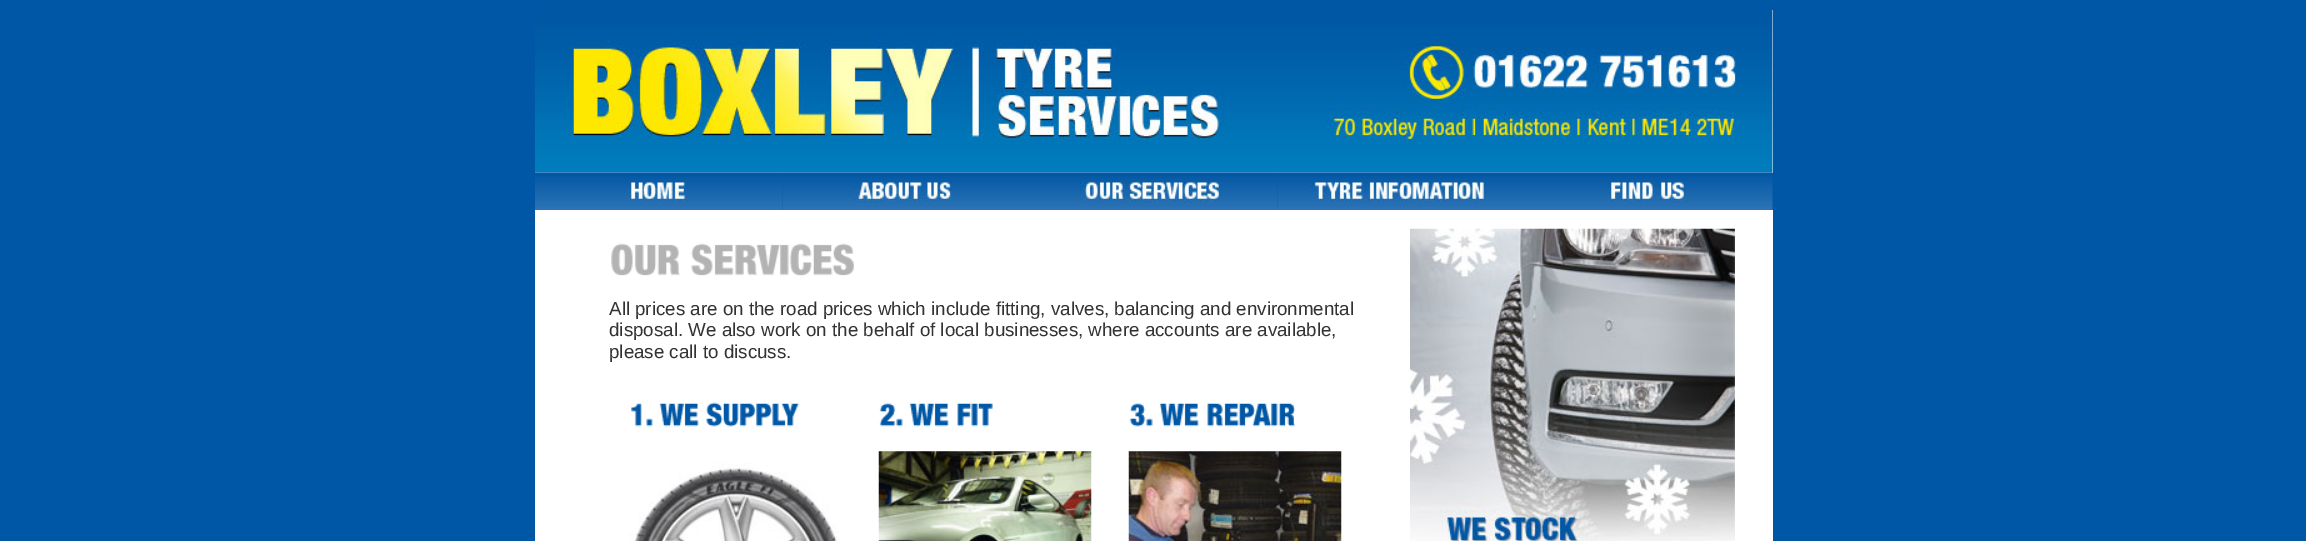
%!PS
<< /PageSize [2306 541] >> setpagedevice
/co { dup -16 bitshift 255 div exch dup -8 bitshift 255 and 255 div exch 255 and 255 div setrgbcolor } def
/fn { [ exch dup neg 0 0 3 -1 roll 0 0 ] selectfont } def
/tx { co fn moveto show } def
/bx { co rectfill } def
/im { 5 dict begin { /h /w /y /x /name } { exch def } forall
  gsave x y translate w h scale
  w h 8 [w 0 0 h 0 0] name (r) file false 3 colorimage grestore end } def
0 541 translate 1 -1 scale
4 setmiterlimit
0 0 2306 541 16#0057A5 bx
535 10 1238 531 16#FFFFFF bx
(media/1.raw) 535 10 1238 163 im
782 173 991 37 16#0057A5 bx
(media/2.raw) 535 172 248 38 im
(media/3.raw) 782 172 248 38 im
(media/4.raw) 1030 172 248 38 im
(media/5.raw) 1277 172 248 38 im
(media/6.raw) 1525 172 248 38 im
(media/7.raw) 611 243 243 33 im
(media/8.raw) 631 402 168 25 im
(media/9.raw) 629 463 210 78 im
(media/10.raw) 879 403 114 24 im
(media/11.raw) 878 451 214 90 im
(media/12.raw) 1129 403 167 24 im
(media/13.raw) 1128 451 214 90 im
(media/14.raw) 1410 228 325 313 im
(All prices are on the road prices which include fitting, valves, balancing and environmental) 609 315 /LiberationSans-Regular 18.75 16#333333 tx
(disposal. We also work on the behalf of local businesses, where accounts are available,) 609 336 /LiberationSans-Regular 18.75 16#333333 tx
(please call to discuss.) 609 358 /LiberationSans-Regular 18.75 16#333333 tx
showpage
